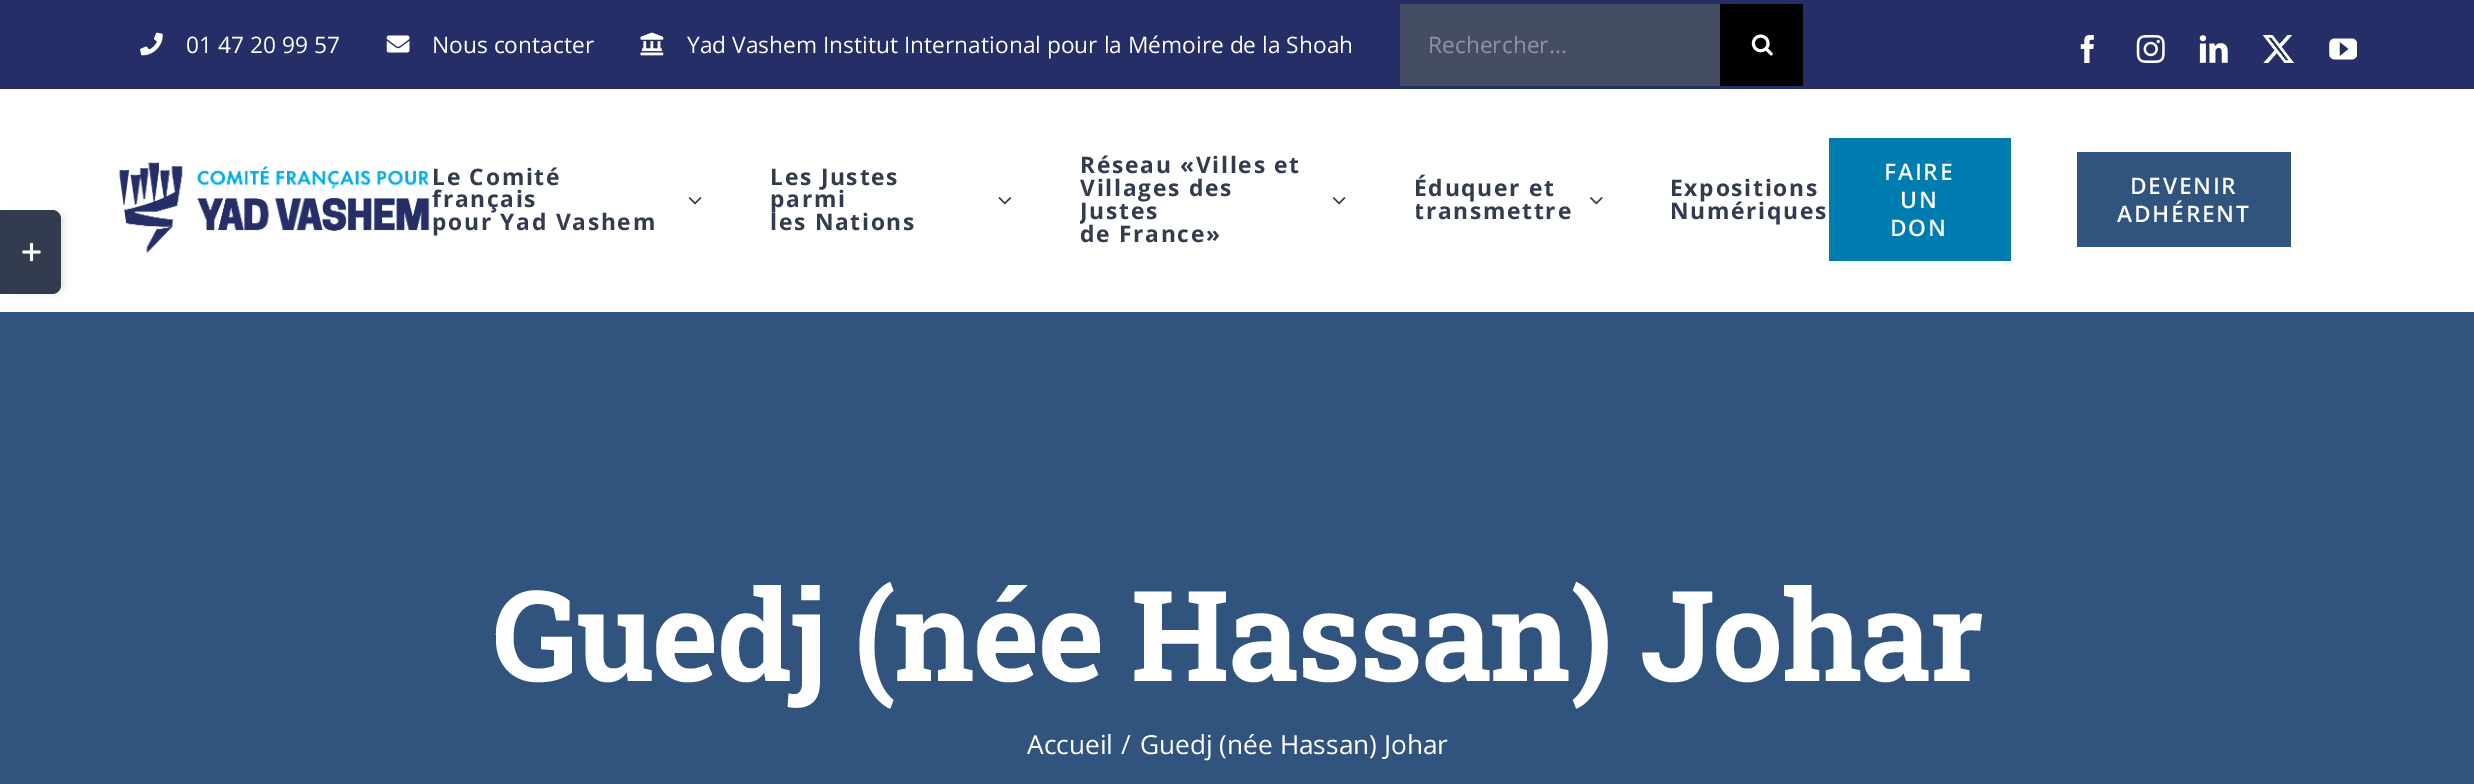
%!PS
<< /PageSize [2474 784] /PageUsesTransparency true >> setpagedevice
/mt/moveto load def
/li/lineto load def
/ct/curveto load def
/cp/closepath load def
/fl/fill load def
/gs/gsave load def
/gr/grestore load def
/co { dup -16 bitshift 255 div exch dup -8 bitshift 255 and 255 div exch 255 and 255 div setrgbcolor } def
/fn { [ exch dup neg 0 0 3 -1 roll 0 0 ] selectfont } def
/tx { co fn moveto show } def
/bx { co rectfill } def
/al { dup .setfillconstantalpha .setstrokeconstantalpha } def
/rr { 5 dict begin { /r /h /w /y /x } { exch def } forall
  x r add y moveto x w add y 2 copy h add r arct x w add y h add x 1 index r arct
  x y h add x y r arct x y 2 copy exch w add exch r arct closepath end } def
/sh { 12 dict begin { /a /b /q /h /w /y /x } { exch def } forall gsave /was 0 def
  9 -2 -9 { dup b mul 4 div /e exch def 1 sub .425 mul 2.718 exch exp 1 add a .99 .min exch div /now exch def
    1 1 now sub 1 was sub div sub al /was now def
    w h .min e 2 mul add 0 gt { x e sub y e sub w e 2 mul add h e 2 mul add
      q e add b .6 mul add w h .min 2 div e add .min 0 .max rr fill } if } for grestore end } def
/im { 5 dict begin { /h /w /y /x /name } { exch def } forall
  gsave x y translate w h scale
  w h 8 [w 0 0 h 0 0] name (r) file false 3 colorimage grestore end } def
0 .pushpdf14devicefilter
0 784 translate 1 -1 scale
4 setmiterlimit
0 0 2474 784 16#FFFFFF bx
16#000000 co
9 214 54 77 5 4.5 .14 sh
16#333C4E co
0 210 mt 52 210 li 57 210 61 214 61 219 ct 61 285 li 61 290 57 294 52 294 ct 0 294 li cp fl
(media/1.raw) 22 242 19 20 im
0 0 2474 89 16#252E67 bx
(media/2.raw) 140 32 23 24 im
(media/3.raw) 386 35 24 18 im
(media/4.raw) 640 32 24 24 im
1400 4 320 82 16#444D62 bx
1720 4 83 82 16#000000 bx
(media/5.raw) 1751 34 22 22 im
(media/6.raw) 2080 35 14 28 im
(media/7.raw) 2136 35 29 28 im
(media/8.raw) 2199 35 29 28 im
(media/9.raw) 2262 35 33 28 im
(media/10.raw) 2329 38 28 22 im
(media/11.raw) 119 162 311 92 im
(media/12.raw) 688 197 14 8 im
(media/13.raw) 998 197 14 8 im
(media/12.raw) 1332 197 14 8 im
(media/14.raw) 1590 197 13 8 im
1829 138 182 123 16#007DB0 bx
2077 152 214 95 16#31547E bx
0 312 2474 472 16#31547E bx
(01 47 20 99 57) 186 53 /OpenSans-Regular 22.75 16#FFFFFF tx
(Nous contacter) 432 53 /OpenSans-Regular 22.75 16#FFFFFF tx
(Yad Vashem Institut International pour la Mémoire de la Shoah) 687 53 /OpenSans-Regular 22.75 16#FFFFFF tx
(Rechercher...) 1428 53 /OpenSans-Regular 22.75 16#8F94A1 tx
/OpenSans-Bold 22.75 fn
16#333C4E co
432 185 mt 1.75 0 (Le Comité) ashow
432 207 mt 1.75 0 (français) ashow
432 230 mt 1.75 0 (pour Yad Vashem) ashow
770 185 mt 1.75 0 (Les Justes) ashow
770 207 mt 1.75 0 (parmi) ashow
770 230 mt 1.75 0 (les Nations) ashow
1080 173 mt 1.75 0 (Réseau «Villes et) ashow
1080 196 mt 1.75 0 (Villages des) ashow
gs
1080 89 336 221 rectclip
1080 219 mt 1.75 0 (Justes) ashow
gr
1080 242 mt 1.75 0 (de France») ashow
gs
1416 89 254 221 rectclip
1414 196 mt 1.75 0 (Éduquer et) ashow
1414 219 mt 1.75 0 (transmettre) ashow
gr
1670 196 mt 1.75 0 (Expositions) ashow
1670 219 mt 1.75 0 (Numériques) ashow
/OpenSans-SemiBold 22.75 fn
16#FFFFFF co
1884 180 mt 1.75 0 (FAIRE) ashow
1900 208 mt 1.75 0 (UN) ashow
1890 236 mt 1.75 0 (DON) ashow
2130 194 mt 1.75 0 (DEVENIR) ashow
2117 222 mt 1.75 0 (ADHÉRENT) ashow
/RobotoSlab-Bold 126 fn
493 681 mt -1.75 0 (Guedj \(née Hassan\) Johar) ashow
(Accueil) 1027 754 /OpenSans-Regular 26.25 16#FFFFFF tx
(/) 1121 754 /OpenSans-Regular 26.25 16#FFFFFF tx
(Guedj \(née Hassan\) Johar) 1140 754 /OpenSans-Regular 26.25 16#FFFFFF tx
.poppdf14devicefilter showpage
